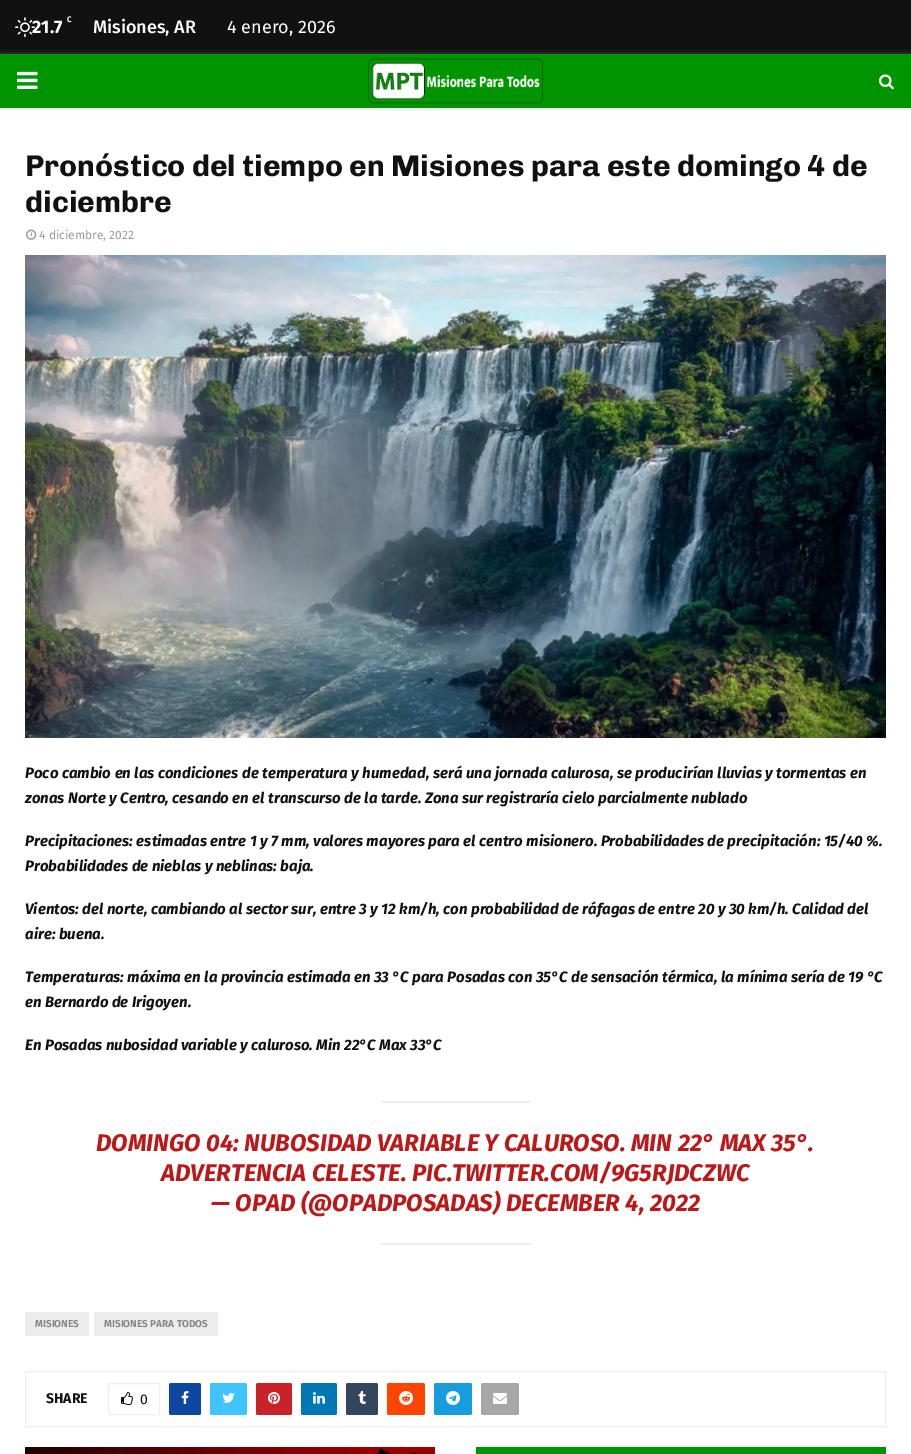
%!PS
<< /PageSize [911 1454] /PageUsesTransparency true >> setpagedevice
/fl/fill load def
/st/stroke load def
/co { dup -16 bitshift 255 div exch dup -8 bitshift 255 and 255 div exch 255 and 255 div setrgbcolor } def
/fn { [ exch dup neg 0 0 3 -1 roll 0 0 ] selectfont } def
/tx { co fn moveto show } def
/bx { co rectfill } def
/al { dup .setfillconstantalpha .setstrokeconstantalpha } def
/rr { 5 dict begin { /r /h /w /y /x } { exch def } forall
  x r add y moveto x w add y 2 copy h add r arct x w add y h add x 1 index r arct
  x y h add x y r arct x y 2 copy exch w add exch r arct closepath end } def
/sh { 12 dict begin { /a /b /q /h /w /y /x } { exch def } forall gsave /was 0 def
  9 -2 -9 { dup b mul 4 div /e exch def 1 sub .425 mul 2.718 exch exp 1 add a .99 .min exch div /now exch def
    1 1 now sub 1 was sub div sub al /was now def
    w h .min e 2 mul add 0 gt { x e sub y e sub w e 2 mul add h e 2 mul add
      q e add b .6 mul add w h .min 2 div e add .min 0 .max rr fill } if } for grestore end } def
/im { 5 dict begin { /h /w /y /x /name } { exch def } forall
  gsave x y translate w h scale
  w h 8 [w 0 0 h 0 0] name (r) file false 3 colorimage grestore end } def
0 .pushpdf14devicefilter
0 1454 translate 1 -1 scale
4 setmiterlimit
0 0 911 1454 16#FFFFFF bx
0 0 911 54 16#111111 bx
(media/1.raw) 15 17 20 21 im
16#BEBEBE co
0 55 911 54 0 2.5 .46 sh
0 54 911 54 16#009400 bx
(media/2.raw) 17 71 21 18 im
(media/3.raw) 368 58 175 46 im
(media/4.raw) 879 74 15 16 im
(media/5.raw) 26 229 11 11 im
(media/6.raw) 25 255 861 483 im
381 1101 150 2 16#EEEEEE bx
381 1243 150 2 16#EEEEEE bx
25 1312 64 24 16#ECECEC bx
94 1312 124 24 16#ECECEC bx
16#EEEEEE co
25.5 1371.5 860 55 rectstroke
108.5 1383.5 51 31 1.5 rr st
(media/7.raw) 121 1392 12 13 im
16#0D47A1 co
169 1383 32 32 2 rr fl
(media/8.raw) 181 1391 8 13 im
16#40C4FF co
210 1383 37 32 2 rr fl
(media/9.raw) 222 1393 13 10 im
16#C92228 co
256 1383 36 32 2 rr fl
(media/10.raw) 268 1392 12 12 im
16#0077B5 co
301 1383 36 32 2 rr fl
(media/11.raw) 313 1392 12 12 im
16#34465D co
346 1383 32 32 2 rr fl
(media/12.raw) 358 1391 8 13 im
16#FF4500 co
387 1383 38 32 2 rr fl
(media/13.raw) 399 1391 14 14 im
16#179CDE co
434 1383 38 32 2 rr fl
(media/14.raw) 446 1391 14 14 im
16#A7A7A7 co
481 1383 38 32 2 rr fl
(media/15.raw) 493 1393 14 11 im
(media/16.raw) 25 1447 410 7 im
476 1447 410 7 16#009400 bx
(21.7) 32 33 /FiraSans-Bold 18 16#FFFFFF tx
(C) 67 22 /FiraSans-Bold 8 16#FFFFFF tx
(Misiones, AR) 93 33 /FiraSans-Medium 18 16#FFFFFF tx
(4 enero, 2026) 227 33 /FiraSans-Regular 18 16#FFFFFF tx
(Pronóstico del tiempo en Misiones para este domingo 4 de) 25 176 /Chivo-Bold 30 16#111111 tx
(diciembre) 25 212 /Chivo-Bold 30 16#111111 tx
(4 diciembre, 2022) 39 239 /FiraSans-Regular 12 16#999999 tx
(Poco cambio en las condiciones de temperatura y humedad, será una jornada calurosa, se producirían lluvias y tormentas en) 25 778 /FiraSans-BoldItalic 15 16#111111 tx
(zonas Norte y Centro, cesando en el transcurso de la tarde. Zona sur registraría cielo parcialmente nublado) 25 803 /FiraSans-BoldItalic 15 16#111111 tx
(Precipitaciones: estimadas entre 1 y 7 mm, valores mayores para el centro misionero. Probabilidades de precipitación: 15/40 %.) 25 846 /FiraSans-BoldItalic 15 16#111111 tx
(Probabilidades de nieblas y neblinas: baja.) 25 871 /FiraSans-BoldItalic 15 16#111111 tx
(Vientos: del norte, cambiando al sector sur, entre 3 y 12 km/h, con probabilidad de ráfagas de entre 20 y 30 km/h. Calidad del) 25 914 /FiraSans-BoldItalic 15 16#111111 tx
(aire: buena.) 25 939 /FiraSans-BoldItalic 15 16#111111 tx
(Temperaturas: máxima en la provincia estimada en 33 °C para Posadas con 35°C de sensación térmica, la mínima sería de 19 °C) 25 982 /FiraSans-BoldItalic 15 16#111111 tx
(en Bernardo de Irigoyen.) 25 1007 /FiraSans-BoldItalic 15 16#111111 tx
(En Posadas nubosidad variable y caluroso. Min 22°C Max 33°C) 25 1050 /FiraSans-BoldItalic 15 16#111111 tx
(DOMINGO 04: NUBOSIDAD VARIABLE Y CALUROSO. MIN 22° MAX 35°.) 96 1151 /FiraSans-BoldItalic 24 16#BB1919 tx
(ADVERTENCIA CELESTE. PIC.TWITTER.COM/9G5RJDCZWC) 161 1181 /FiraSans-BoldItalic 24 16#BB1919 tx
(— OPAD \(@OPADPOSADAS\) DECEMBER 4, 2022) 211 1211 /FiraSans-BoldItalic 24 16#BB1919 tx
(MISIONES) 35 1327 /FiraSans-Bold 10 16#888888 tx
(MISIONES PARA TODOS) 104 1327 /FiraSans-Bold 10 16#888888 tx
(SHARE) 46 1403 /FiraSans-Bold 14 16#111111 tx
(0) 140 1404 /FiraSans-Regular 14 16#111111 tx
.poppdf14devicefilter showpage
